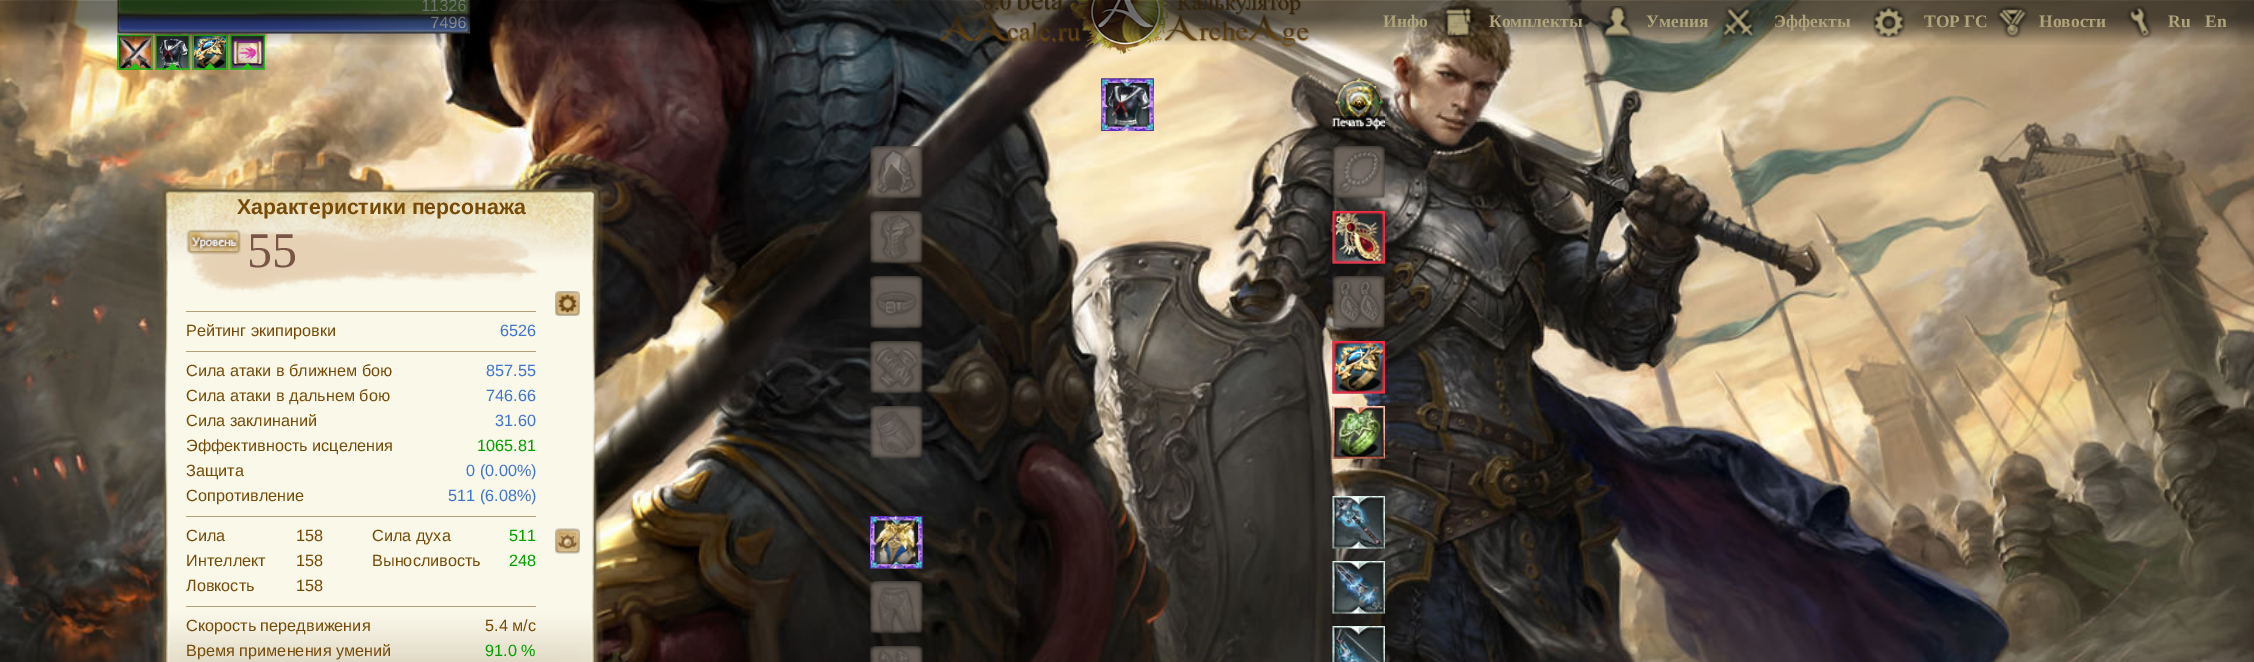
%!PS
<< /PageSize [2254 662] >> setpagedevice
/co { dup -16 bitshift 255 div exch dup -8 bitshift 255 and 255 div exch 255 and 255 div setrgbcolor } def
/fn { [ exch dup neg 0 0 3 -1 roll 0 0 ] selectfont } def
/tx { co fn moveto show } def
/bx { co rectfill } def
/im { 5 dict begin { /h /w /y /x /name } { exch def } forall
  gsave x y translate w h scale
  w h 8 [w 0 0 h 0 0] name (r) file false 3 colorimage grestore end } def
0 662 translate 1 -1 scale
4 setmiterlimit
0 0 2254 662 16#FFFFFF bx
(media/1.raw) 0 0 2254 662 im
(media/2.raw) 117 0 354 34 im
(media/3.raw) 940 0 370 55 im
(media/11.raw) 117 34 36 36 im
(media/12.raw) 117 34 36 36 im
(media/13.raw) 155 34 35 36 im
(media/14.raw) 155 34 35 36 im
(media/15.raw) 192 34 36 36 im
(media/16.raw) 192 34 36 36 im
(media/17.raw) 230 34 35 36 im
(media/18.raw) 230 34 35 36 im
(media/19.raw) 156 183 448 479 im
(media/21.raw) 191 228 347 65 im
(media/20.raw) 186 229 55 26 im
186 311 350 1 16#B1A17D bx
186 351 350 1 16#B1A17D bx
186 516 350 1 16#B1A17D bx
186 606 350 1 16#B1A17D bx
(media/22.raw) 555 291 25 25 im
(media/23.raw) 555 528 25 26 im
(media/24.raw) 1101 78 53 53 im
(media/25.raw) 1101 78 53 53 im
(media/26.raw) 1332 78 53 53 im
(media/27.raw) 870 146 53 53 im
(media/28.raw) 870 211 53 53 im
(media/29.raw) 870 276 53 53 im
(media/30.raw) 870 341 53 53 im
(media/31.raw) 870 406 53 53 im
(media/32.raw) 870 516 53 53 im
(media/33.raw) 870 516 53 53 im
(media/34.raw) 870 581 53 53 im
(media/35.raw) 870 646 53 16 im
(media/36.raw) 1332 146 53 53 im
(media/37.raw) 1332 211 53 53 im
(media/38.raw) 1332 211 53 53 im
(media/39.raw) 1332 276 53 53 im
(media/40.raw) 1332 341 53 53 im
(media/41.raw) 1332 341 53 53 im
(media/42.raw) 1332 406 53 53 im
(media/43.raw) 1332 406 53 53 im
(media/44.raw) 1332 496 53 53 im
(media/45.raw) 1332 496 53 53 im
(media/46.raw) 1332 561 53 53 im
(media/47.raw) 1332 561 53 53 im
(media/48.raw) 1332 626 52 36 im
(media/49.raw) 1332 626 53 36 im
(11326) 421 11 /LiberationSans-Regular 16.25 16#FFFFFF tx
(7496) 430 28 /LiberationSans-Regular 16.25 16#FFFFFF tx
(media/4.raw) 0 0 2254 45 im
(media/5.raw) 1443 6 31 32 im
(Инфо) 1383 27 /LiberationSerif-Bold 17.5 16#B0A47B tx
(media/6.raw) 1602 6 32 32 im
(Комплекты) 1489 27 /LiberationSerif-Bold 17.5 16#B0A47B tx
(media/7.raw) 1722 6 32 32 im
(Умения) 1646 27 /LiberationSerif-Bold 17.5 16#B0A47B tx
(media/8.raw) 1873 6 33 32 im
(Эффекты) 1774 27 /LiberationSerif-Bold 17.5 16#B0A47B tx
(media/9.raw) 1997 6 31 32 im
(TOP ГС) 1924 27 /LiberationSerif-Bold 17.5 16#B0A47B tx
(media/10.raw) 2127 6 26 32 im
(Новости) 2039 27 /LiberationSerif-Bold 17.5 16#B0A47B tx
(Ru) 2168 27 /LiberationSerif-Bold 17.5 16#B0A47B tx
(En) 2205 27 /LiberationSerif-Bold 17.5 16#B0A47B tx
(Характеристики персонажа) 237 214 /LiberationSans-Bold 21.25 16#764B07 tx
(55) 247 267 /LiberationSerif-Regular 50 16#795548 tx
(Рейтинг экипировки) 186 336 /LiberationSans-Regular 16.25 16#764B07 tx
(6526) 500 336 /LiberationSans-Regular 16.25 16#4076D0 tx
(Сила атаки в ближнем бою) 186 376 /LiberationSans-Regular 16.25 16#764B07 tx
(857.55) 486 376 /LiberationSans-Regular 16.25 16#4076D0 tx
(Сила атаки в дальнем бою) 186 401 /LiberationSans-Regular 16.25 16#764B07 tx
(746.66) 486 401 /LiberationSans-Regular 16.25 16#4076D0 tx
(Сила заклинаний) 186 426 /LiberationSans-Regular 16.25 16#764B07 tx
(31.60) 495 426 /LiberationSans-Regular 16.25 16#4076D0 tx
(Эффективность исцеления) 186 451 /LiberationSans-Regular 16.25 16#764B07 tx
(1065.81) 477 451 /LiberationSans-Regular 16.25 16#00A000 tx
(Защита) 186 476 /LiberationSans-Regular 16.25 16#764B07 tx
(0 \(0.00%\)) 466 476 /LiberationSans-Regular 16.25 16#4076D0 tx
(Сопротивление) 186 501 /LiberationSans-Regular 16.25 16#764B07 tx
(511 \(6.08%\)) 448 501 /LiberationSans-Regular 16.25 16#4076D0 tx
(Сила) 186 541 /LiberationSans-Regular 16.25 16#764B07 tx
(158) 296 541 /LiberationSans-Regular 16.25 16#764B07 tx
(Интеллект) 186 566 /LiberationSans-Regular 16.25 16#764B07 tx
(158) 296 566 /LiberationSans-Regular 16.25 16#764B07 tx
(Ловкость) 186 591 /LiberationSans-Regular 16.25 16#764B07 tx
(158) 296 591 /LiberationSans-Regular 16.25 16#764B07 tx
(Cила духа) 372 541 /LiberationSans-Regular 16.25 16#764B07 tx
(511) 509 541 /LiberationSans-Regular 16.25 16#00A000 tx
(Выносливость) 372 566 /LiberationSans-Regular 16.25 16#764B07 tx
(248) 509 566 /LiberationSans-Regular 16.25 16#00A000 tx
(Скорость передвижения) 186 631 /LiberationSans-Regular 16.25 16#764B07 tx
(5.4 м/с) 485 631 /LiberationSans-Regular 16.25 16#764B07 tx
(Время применения умений) 186 656 /LiberationSans-Regular 16.25 16#764B07 tx
(91.0 %) 485 656 /LiberationSans-Regular 16.25 16#00A000 tx
showpage
